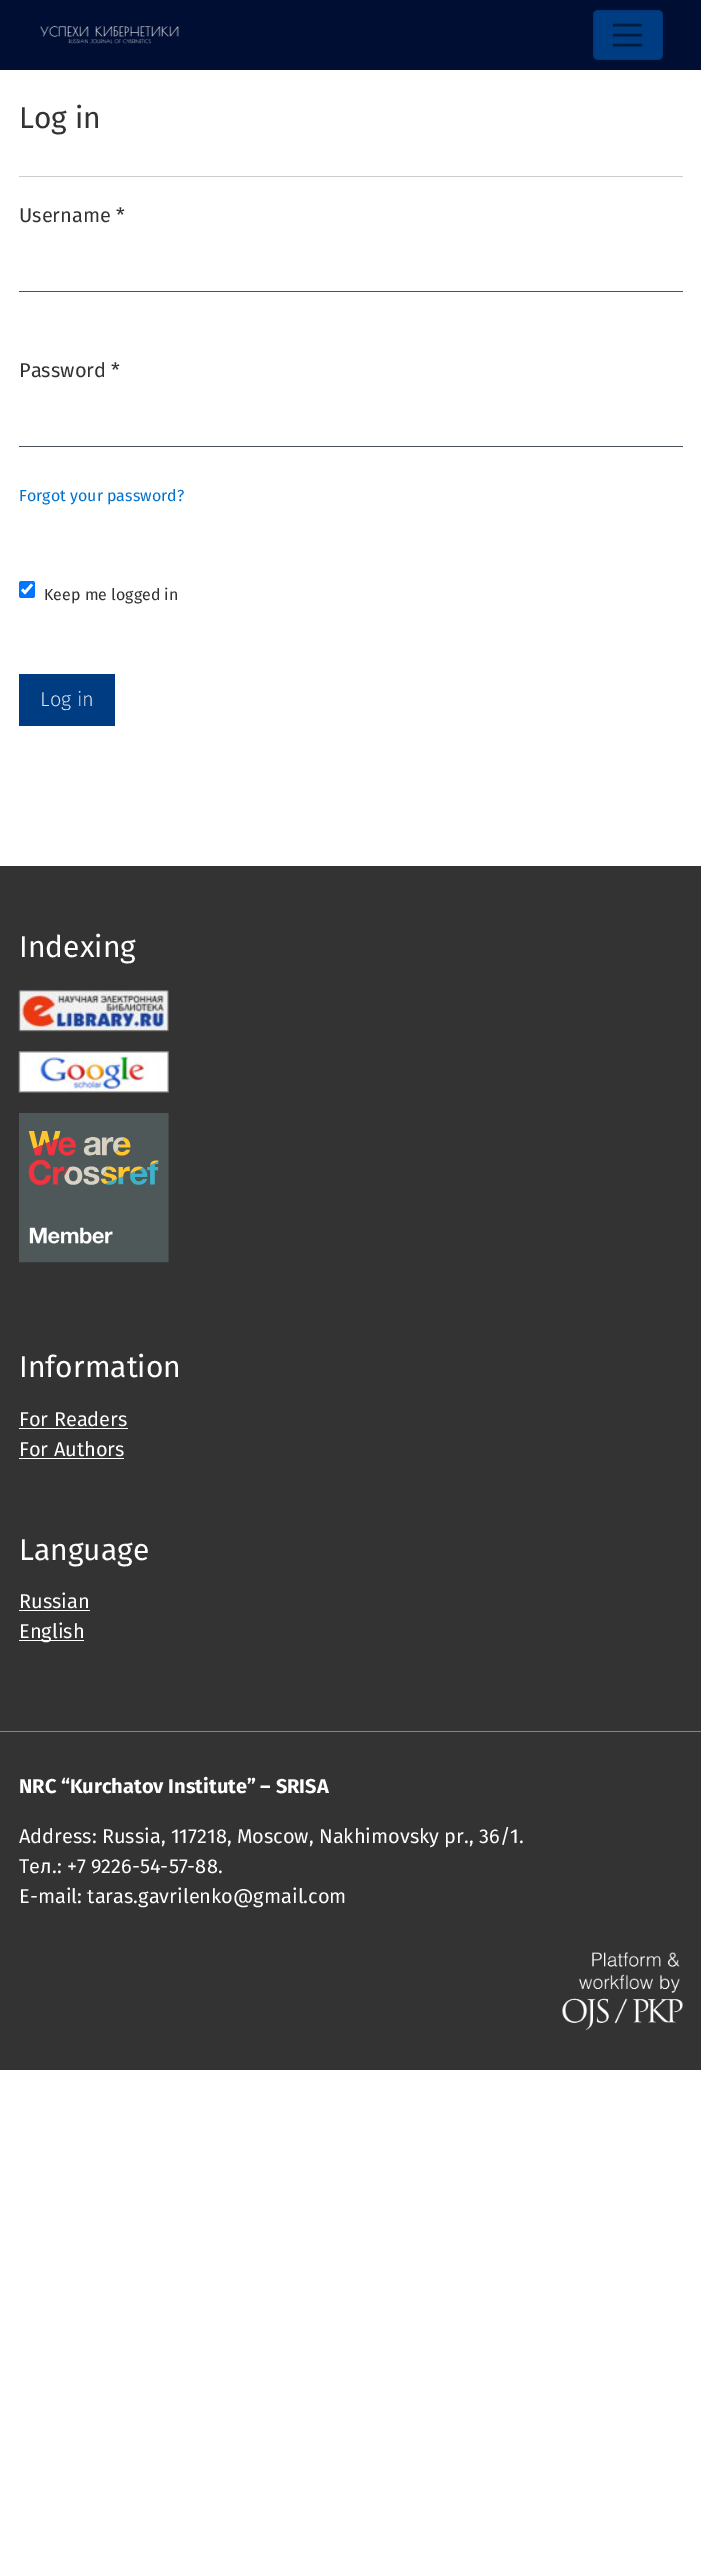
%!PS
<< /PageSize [701 2550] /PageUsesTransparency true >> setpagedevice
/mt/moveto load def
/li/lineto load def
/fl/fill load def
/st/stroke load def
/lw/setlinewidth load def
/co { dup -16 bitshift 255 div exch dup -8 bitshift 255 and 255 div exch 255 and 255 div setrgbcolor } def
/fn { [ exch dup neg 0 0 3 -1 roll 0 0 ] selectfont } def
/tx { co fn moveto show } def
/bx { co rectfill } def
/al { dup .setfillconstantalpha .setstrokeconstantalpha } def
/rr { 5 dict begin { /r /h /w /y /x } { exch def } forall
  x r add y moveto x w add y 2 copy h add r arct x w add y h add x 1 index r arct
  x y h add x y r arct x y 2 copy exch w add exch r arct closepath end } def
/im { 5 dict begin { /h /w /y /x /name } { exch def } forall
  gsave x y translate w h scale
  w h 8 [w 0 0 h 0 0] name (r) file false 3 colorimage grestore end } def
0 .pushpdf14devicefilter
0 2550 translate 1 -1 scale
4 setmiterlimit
0 0 701 2550 16#FFFFFF bx
0 0 701 70 16#000E33 bx
(media/1.raw) 39 26 140 18 im
16#003C82 co
593 10 70 50 5 rr fl
0.1 al
16#000000 co
593.5 10.5 69 49 4.5 rr st
1 al
16#001E41 co
2.5 lw
1 setlinecap
614 25 mt 641 25 li 614 35 mt 641 35 li 614 45 mt 641 45 li st
19 176 664 1 16#CCCCCC bx
19 291 664 1 16#495057 bx
19 446 664 1 16#495057 bx
16#0075FF co
19 581 16 17 2.5 rr fl
16#FFFFFF co
2.6 lw
0 setlinecap
22 589.5 mt 25 592.5 li 32 584.5 li st
19 674 96 52 16#003C82 bx
0 866 701 1204 16#333333 bx
0 1731 701 1 16#858585 bx
(media/2.raw) 18 990 151 42 im
(media/3.raw) 18 1051 151 42 im
(media/4.raw) 19 1113 150 150 im
19 1428 109 1 16#FFFFFF bx
19 1458 105 1 16#FFFFFF bx
19 1610 71 1 16#FFFFFF bx
19 1640 65 1 16#FFFFFF bx
(media/5.raw) 562 1952 121 78 im
(Log in) 19 128 /FiraSans-Regular 30 16#333333 tx
(Username *) 19 222 /FiraSans-Regular 20 16#333333 tx
(Password *) 19 377 /FiraSans-Regular 20 16#333333 tx
(Forgot your password?) 19 501 /FiraSans-Regular 16 16#0073D1 tx
(Keep me logged in) 44 600 /FiraSans-Regular 16 16#333333 tx
(Log in) 40 706 /FiraSans-Light 20 16#E0E4EE tx
(Indexing) 19 957 /FiraSans-Regular 30 16#FFFFFF tx
(Information) 19 1377 /FiraSans-Regular 30 16#FFFFFF tx
(For Readers) 19 1426 /FiraSans-Regular 20 16#FFFFFF tx
(For Authors) 19 1456 /FiraSans-Regular 20 16#FFFFFF tx
(Language) 19 1560 /FiraSans-Regular 30 16#FFFFFF tx
(Russian) 19 1608 /FiraSans-Regular 20 16#FFFFFF tx
(English) 19 1638 /FiraSans-Regular 20 16#FFFFFF tx
(NRC “Kurchatov Institute” – SRISA) 19 1793 /FiraSans-Bold 20 16#FFFFFF tx
(Address: Russia, 117218, Moscow, Nakhimovsky pr., 36/1.) 19 1843 /FiraSans-Regular 20 16#FFFFFF tx
(Тел.: +7 9226-54-57-88.) 19 1873 /FiraSans-Regular 20 16#FFFFFF tx
(E-mail: taras.gavrilenko@gmail.com) 19 1903 /FiraSans-Regular 20 16#FFFFFF tx
.poppdf14devicefilter showpage
